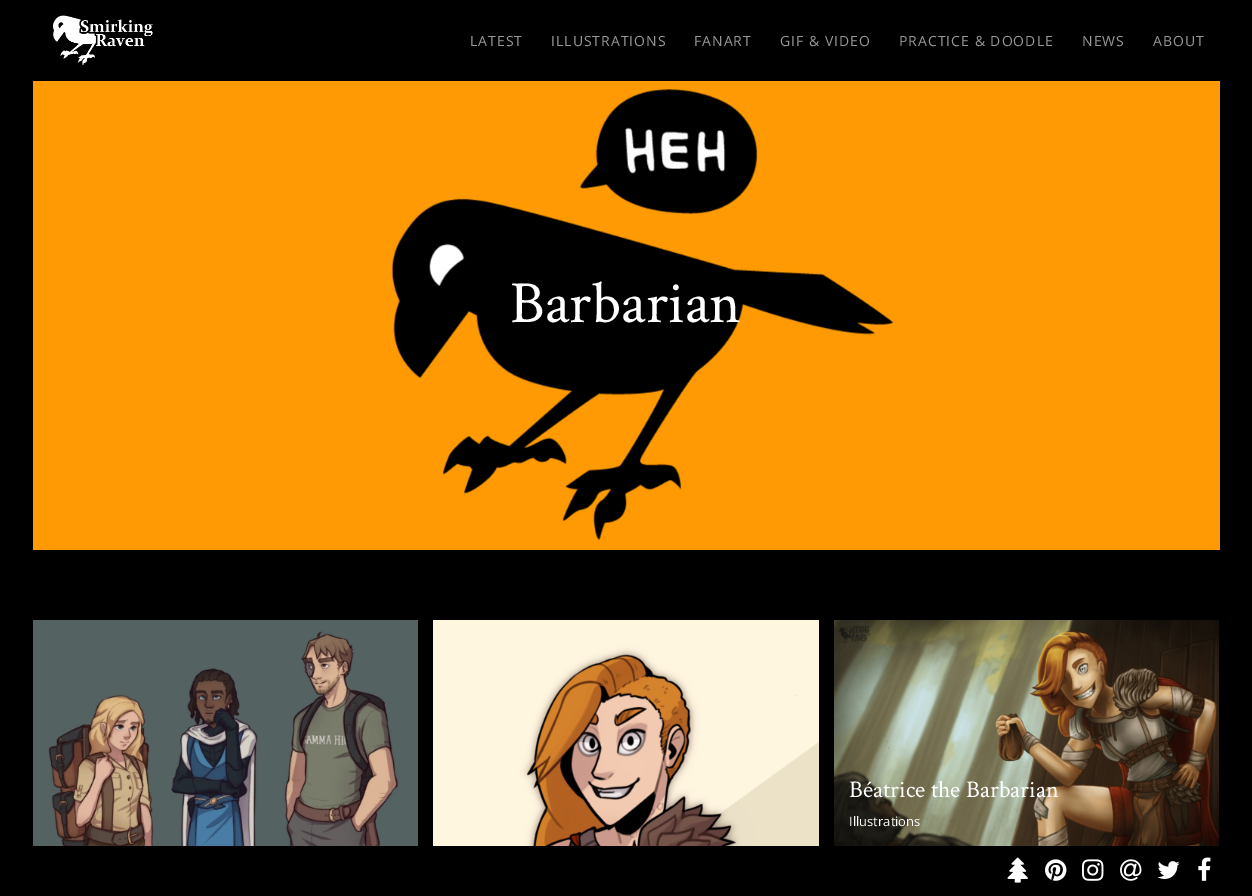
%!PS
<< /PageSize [1252 896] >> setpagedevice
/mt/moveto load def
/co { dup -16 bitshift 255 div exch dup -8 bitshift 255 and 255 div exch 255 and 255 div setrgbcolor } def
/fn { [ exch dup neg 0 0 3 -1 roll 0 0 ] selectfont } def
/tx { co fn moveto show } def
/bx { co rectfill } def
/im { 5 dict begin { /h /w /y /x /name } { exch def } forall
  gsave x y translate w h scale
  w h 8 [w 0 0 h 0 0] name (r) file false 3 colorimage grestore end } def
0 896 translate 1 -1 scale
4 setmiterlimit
0 0 1252 896 16#000000 bx
(media/1.raw) 53 15 100 50 im
(media/2.raw) 33 81 1187 469 im
(media/3.raw) 33 620 385 226 im
(media/4.raw) 433 620 386 226 im
(media/5.raw) 834 620 385 226 im
(media/6.raw) 1007 857 21 26 im
(media/7.raw) 1045 859 22 22 im
(media/8.raw) 1082 859 22 22 im
(media/9.raw) 1120 859 22 22 im
(media/10.raw) 1157 861 23 18 im
(media/11.raw) 1198 857 13 24 im
/OpenSans-Regular 14 fn
16#989898 co
470 46 mt 1 0 (LATEST) ashow
551 46 mt 1 0 (ILLUSTRATIONS) ashow
694 46 mt 1 0 (FANART) ashow
780 46 mt 1 0 (GIF & VIDEO) ashow
899 46 mt 1 0 (PRACTICE & DOODLE) ashow
1082 46 mt 1 0 (NEWS) ashow
1153 46 mt 1 0 (ABOUT) ashow
(Barbarian) 510 322 /CrimsonText-Regular 60 16#FFFFFF tx
(Béatrice the Barbarian) 849 797 /CrimsonText-Regular 24 16#FFFFFF tx
(Illustrations) 849 826 /OpenSans-Regular 13 16#FFFFFF tx
showpage
